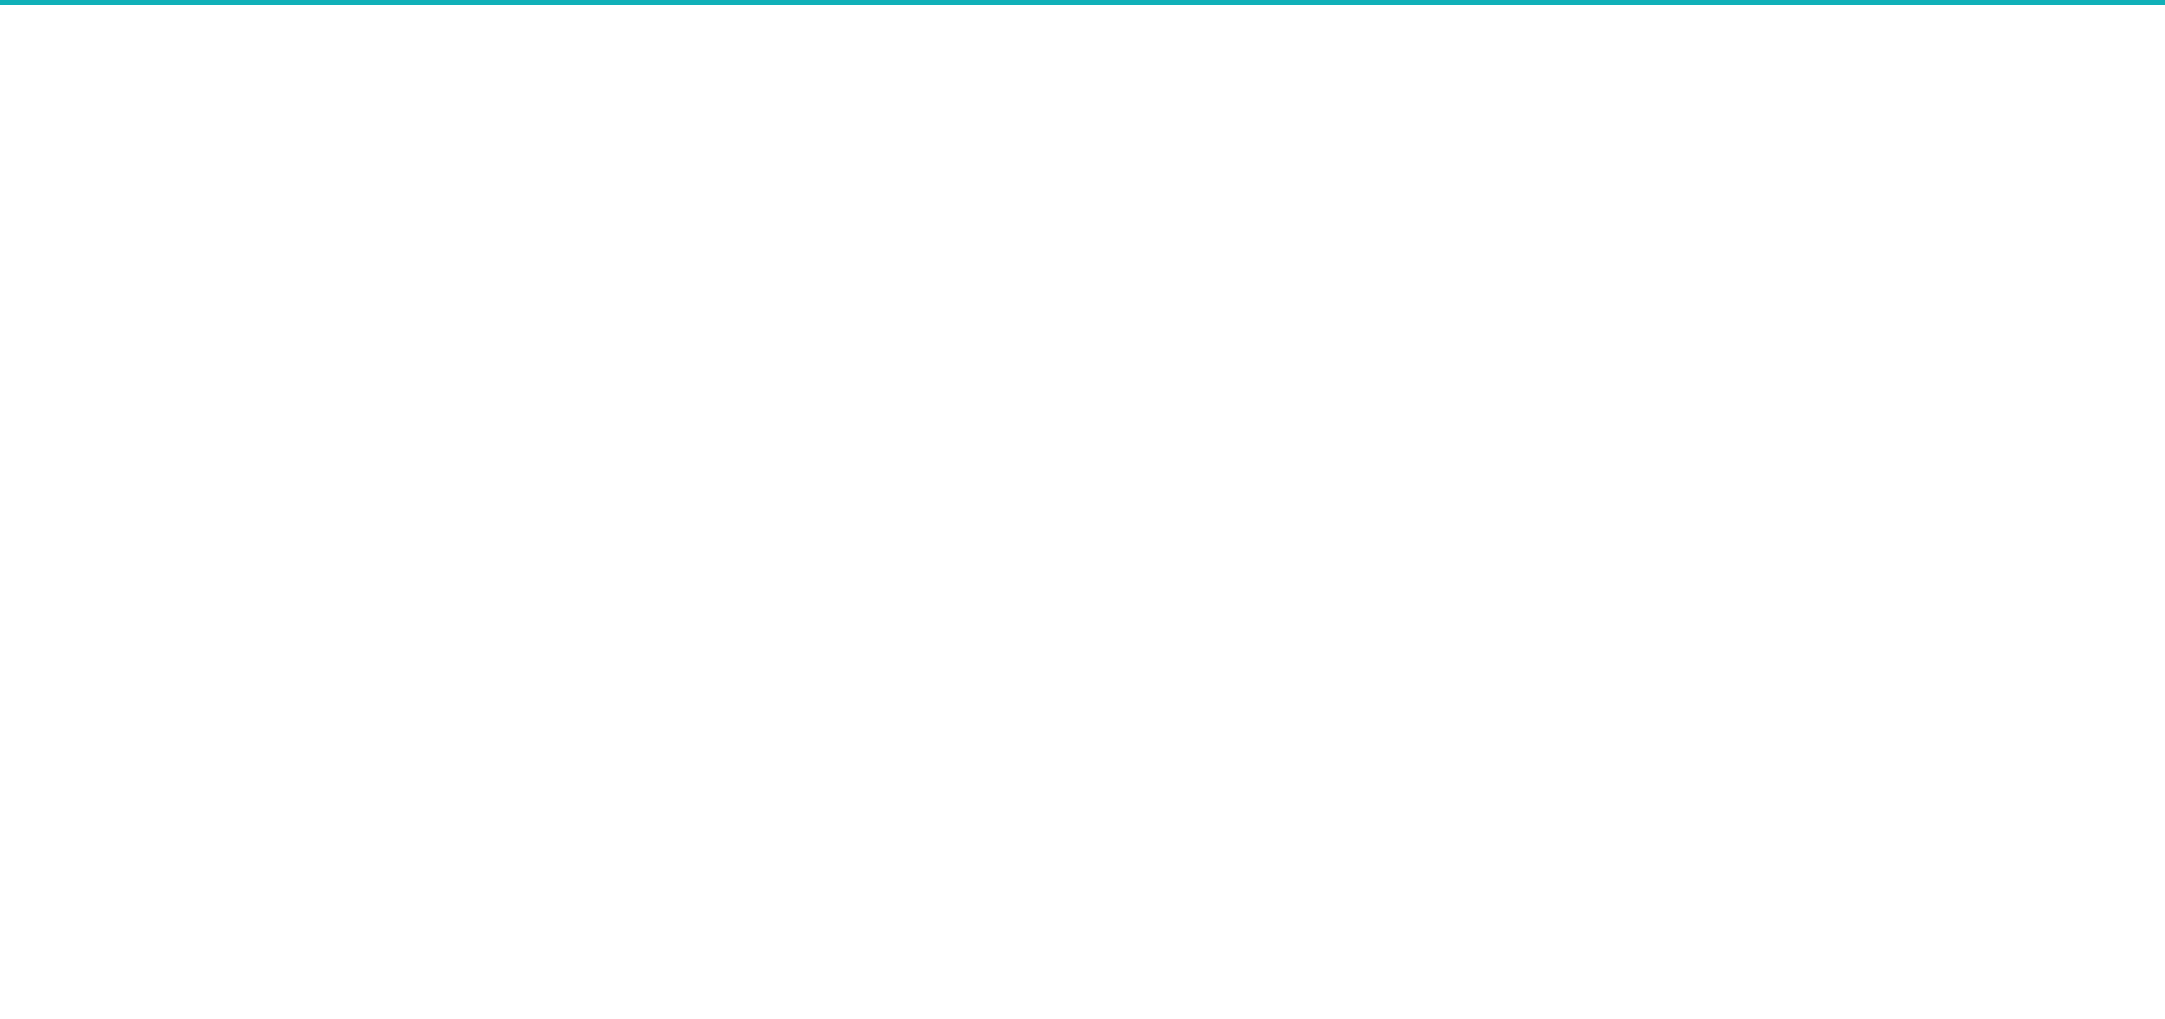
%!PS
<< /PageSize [2165 1019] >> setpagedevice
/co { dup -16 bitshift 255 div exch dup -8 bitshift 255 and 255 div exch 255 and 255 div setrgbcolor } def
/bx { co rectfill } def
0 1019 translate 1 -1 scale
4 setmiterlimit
0 0 2165 1019 16#FFFFFF bx
0 0 2165 5 16#10B0B8 bx
showpage
